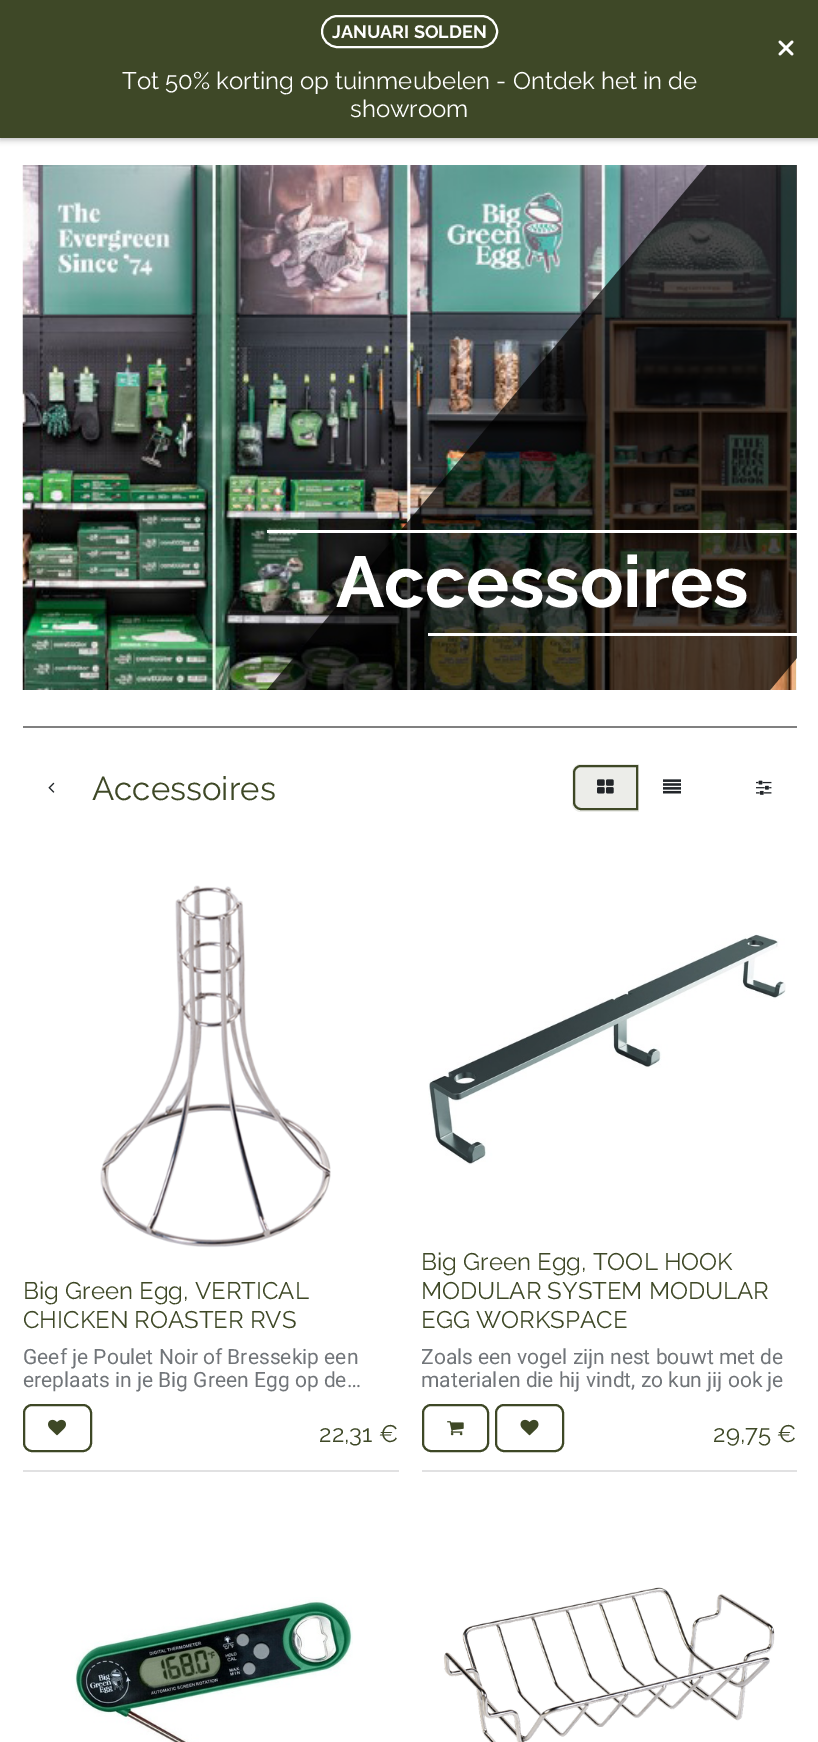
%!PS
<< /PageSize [818 1742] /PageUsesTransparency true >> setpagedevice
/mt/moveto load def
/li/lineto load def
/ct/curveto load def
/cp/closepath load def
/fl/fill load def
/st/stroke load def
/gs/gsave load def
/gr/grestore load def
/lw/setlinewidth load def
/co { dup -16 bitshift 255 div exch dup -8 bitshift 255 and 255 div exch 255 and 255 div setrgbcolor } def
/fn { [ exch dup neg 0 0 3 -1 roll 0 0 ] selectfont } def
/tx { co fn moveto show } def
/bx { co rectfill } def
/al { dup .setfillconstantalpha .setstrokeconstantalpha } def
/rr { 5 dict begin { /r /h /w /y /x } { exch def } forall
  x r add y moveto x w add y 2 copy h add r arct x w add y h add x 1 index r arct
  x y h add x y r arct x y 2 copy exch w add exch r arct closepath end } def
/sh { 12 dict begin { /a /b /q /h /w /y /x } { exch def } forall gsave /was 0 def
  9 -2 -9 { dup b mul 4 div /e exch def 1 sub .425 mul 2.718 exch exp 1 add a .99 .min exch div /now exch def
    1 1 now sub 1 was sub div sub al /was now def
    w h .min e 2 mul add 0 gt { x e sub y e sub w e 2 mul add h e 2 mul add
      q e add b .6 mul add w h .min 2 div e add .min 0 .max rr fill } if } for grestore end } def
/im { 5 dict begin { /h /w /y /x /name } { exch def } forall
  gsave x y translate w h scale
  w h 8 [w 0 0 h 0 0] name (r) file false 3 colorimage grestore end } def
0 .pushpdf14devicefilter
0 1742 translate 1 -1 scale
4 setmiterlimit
0 0 818 1742 16#FFFFFF bx
16#000000 co
0 2 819 138 0 3 .25 sh
0 0 818 138 16#3E4827 bx
16#FFFFFF co
2 lw
322 16 175 31 15.5 rr st
(media/1.raw) 778 40 16 16 im
23 726 774 2 16#808080 bx
(media/2.raw) 22 165 775 525 im
gs
23 165 774 525 rectclip
0.7 al
16#000000 co
707 165 mt 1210 165 li 770 690 li 267 690 li cp fl
gr
267 530 530 3 16#FFFFFF bx
428 633 369 3 16#FFFFFF bx
(media/3.raw) 48 782 7 11 im
16#ECEDE9 co
581 764 mt 639 764 li 639 812 li 581 812 li 576 812 572 808 572 803 ct 572 773 li 572 768 576 764 581 764 ct cp fl
16#3E4826 co
581 766 mt 637 766 li 637 809 li 581 809 li 577 809 574 806 574 802 ct 574 773 li 574 769 577 766 581 766 ct cp st
(media/4.raw) 597 779 17 15 im
(media/5.raw) 663 779 18 15 im
(media/6.raw) 756 780 16 15 im
23 1470 376 2 16#E1E1E2 bx
(media/7.raw) 100 885 231 363 im
16#3E4826 co
24 1405 67 46 8 rr st
(media/8.raw) 48 1419 18 17 im
422 1470 375 2 16#E1E1E2 bx
(media/9.raw) 428 934 358 231 im
16#3E4826 co
423 1405 65 46 8 rr st
(media/10.raw) 447 1421 17 15 im
496 1405 67 46 8 rr st
(media/11.raw) 520 1419 19 17 im
(media/12.raw) 71 1597 282 145 im
(media/13.raw) 443 1587 332 155 im
(JANUARI SOLDEN) 332 38 /Raleway-Bold 18 16#FFFFFF tx
(Tot 50% korting op tuinmeubelen - Ontdek het in de) 122 89 /Raleway-Regular 24 16#FFFFFF tx
(showroom) 350 117 /Raleway-Regular 24 16#FFFFFF tx
(Accessoires) 336 607 /Raleway-Bold 72 16#FFFFFF tx
(Accessoires) 92 800 /Raleway-Regular 33 16#3E4826 tx
(Big Green Egg, VERTICAL) 23 1299 /Raleway-Regular 24 16#3E4826 tx
(CHICKEN ROASTER RVS) 23 1328 /Raleway-Regular 24 16#3E4826 tx
(Geef je Poulet Noir of Bressekip een) 23 1364 /Roboto-Regular 21 16#717579 tx
(ereplaats in je Big Green Egg op de…) 23 1387 /Roboto-Regular 21 16#717579 tx
(22,31 €) 319 1442 /Raleway-Regular 24 16#3E4826 tx
(Big Green Egg, TOOL HOOK) 421 1270 /Raleway-Regular 24 16#3E4826 tx
(MODULAR SYSTEM MODULAR) 421 1299 /Raleway-Regular 24 16#3E4826 tx
(EGG WORKSPACE) 421 1328 /Raleway-Regular 24 16#3E4826 tx
gs
422 1346 375 46 rectclip
(Zoals een vogel zijn nest bouwt met de) 421 1364 /Roboto-Regular 21 16#717579 tx
gr
(materialen die hij vindt, zo kun jij ook je) 421 1387 /Roboto-Regular 21 16#717579 tx
(29,75 €) 713 1442 /Raleway-Regular 24 16#3E4826 tx
.poppdf14devicefilter showpage
